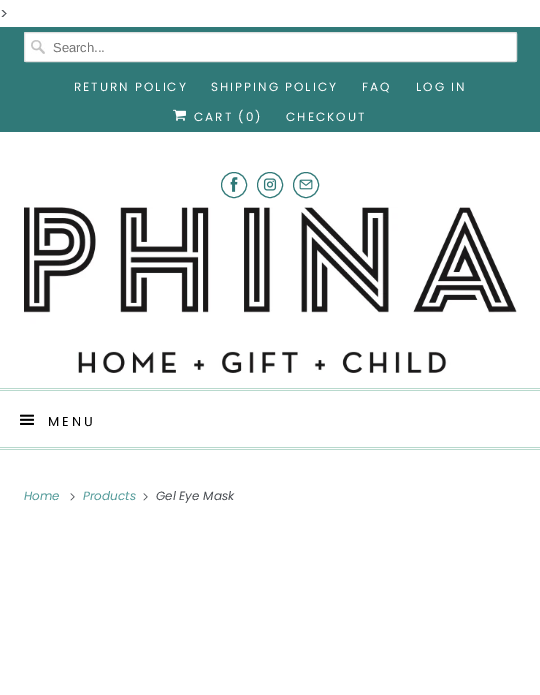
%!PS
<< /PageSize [540 695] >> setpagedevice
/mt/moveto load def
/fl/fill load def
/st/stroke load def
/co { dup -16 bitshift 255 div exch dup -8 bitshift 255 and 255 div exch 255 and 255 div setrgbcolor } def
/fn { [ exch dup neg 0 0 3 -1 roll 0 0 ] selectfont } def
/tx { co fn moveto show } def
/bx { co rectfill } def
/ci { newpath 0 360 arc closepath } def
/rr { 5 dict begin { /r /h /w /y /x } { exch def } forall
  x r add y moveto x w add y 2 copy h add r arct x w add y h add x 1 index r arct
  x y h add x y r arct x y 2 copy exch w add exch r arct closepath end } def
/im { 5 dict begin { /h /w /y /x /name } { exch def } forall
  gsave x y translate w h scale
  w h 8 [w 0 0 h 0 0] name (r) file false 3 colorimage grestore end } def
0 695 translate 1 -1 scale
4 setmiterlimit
0 0 540 695 16#FFFFFF bx
0 27 540 105 16#307978 bx
16#FFFFFF co
24 32 493 30 2 rr fl
(media/1.raw) 31 40 14 14 im
16#DFDFDF co
24.5 32.5 492 29 1.5 rr st
(media/2.raw) 173 109 13 12 im
16#307978 co
234 185 12.5 ci st
(media/3.raw) 230 177 8 15 im
270 185 12.5 ci st
(media/4.raw) 263 178 14 13 im
306 185 12.5 ci st
(media/5.raw) 299 179 14 11 im
(media/6.raw) 24 207 493 166 im
0 388 540 1 16#B8D9CD bx
0 390 540 1 16#B8D9CD bx
0 447 540 1 16#B8D9CD bx
0 449 540 1 16#B8D9CD bx
(media/7.raw) 20 414 14 11 im
(media/8.raw) 70 493 5 8 im
(media/8.raw) 143 493 5 8 im
(>) 0 19 /Poppins-Regular 15 16#4B4F54 tx
(Search...) 53 52 /LiberationSans-Regular 13 16#757575 tx
/Poppins-Regular 12 fn
16#FFFFFF co
74 91 mt 2 0 (RETURN POLICY) ashow
211 91 mt 2 0 (SHIPPING POLICY) ashow
362 91 mt 2 0 (FAQ) ashow
416 91 mt 2 0 (LOG IN) ashow
194 121 mt 2 0 (CART \(0\)) ashow
286 121 mt 2 0 (CHECKOUT) ashow
/Poppins-Regular 13 fn
16#000000 co
48 426 mt 3 0 (MENU) ashow
(Home) 24 500 /Poppins-Italic 12 16#559C9B tx
(Products) 83 500 /Poppins-Italic 12 16#559C9B tx
(Gel Eye Mask) 156 500 /Poppins-Italic 12 16#4B4F54 tx
showpage
